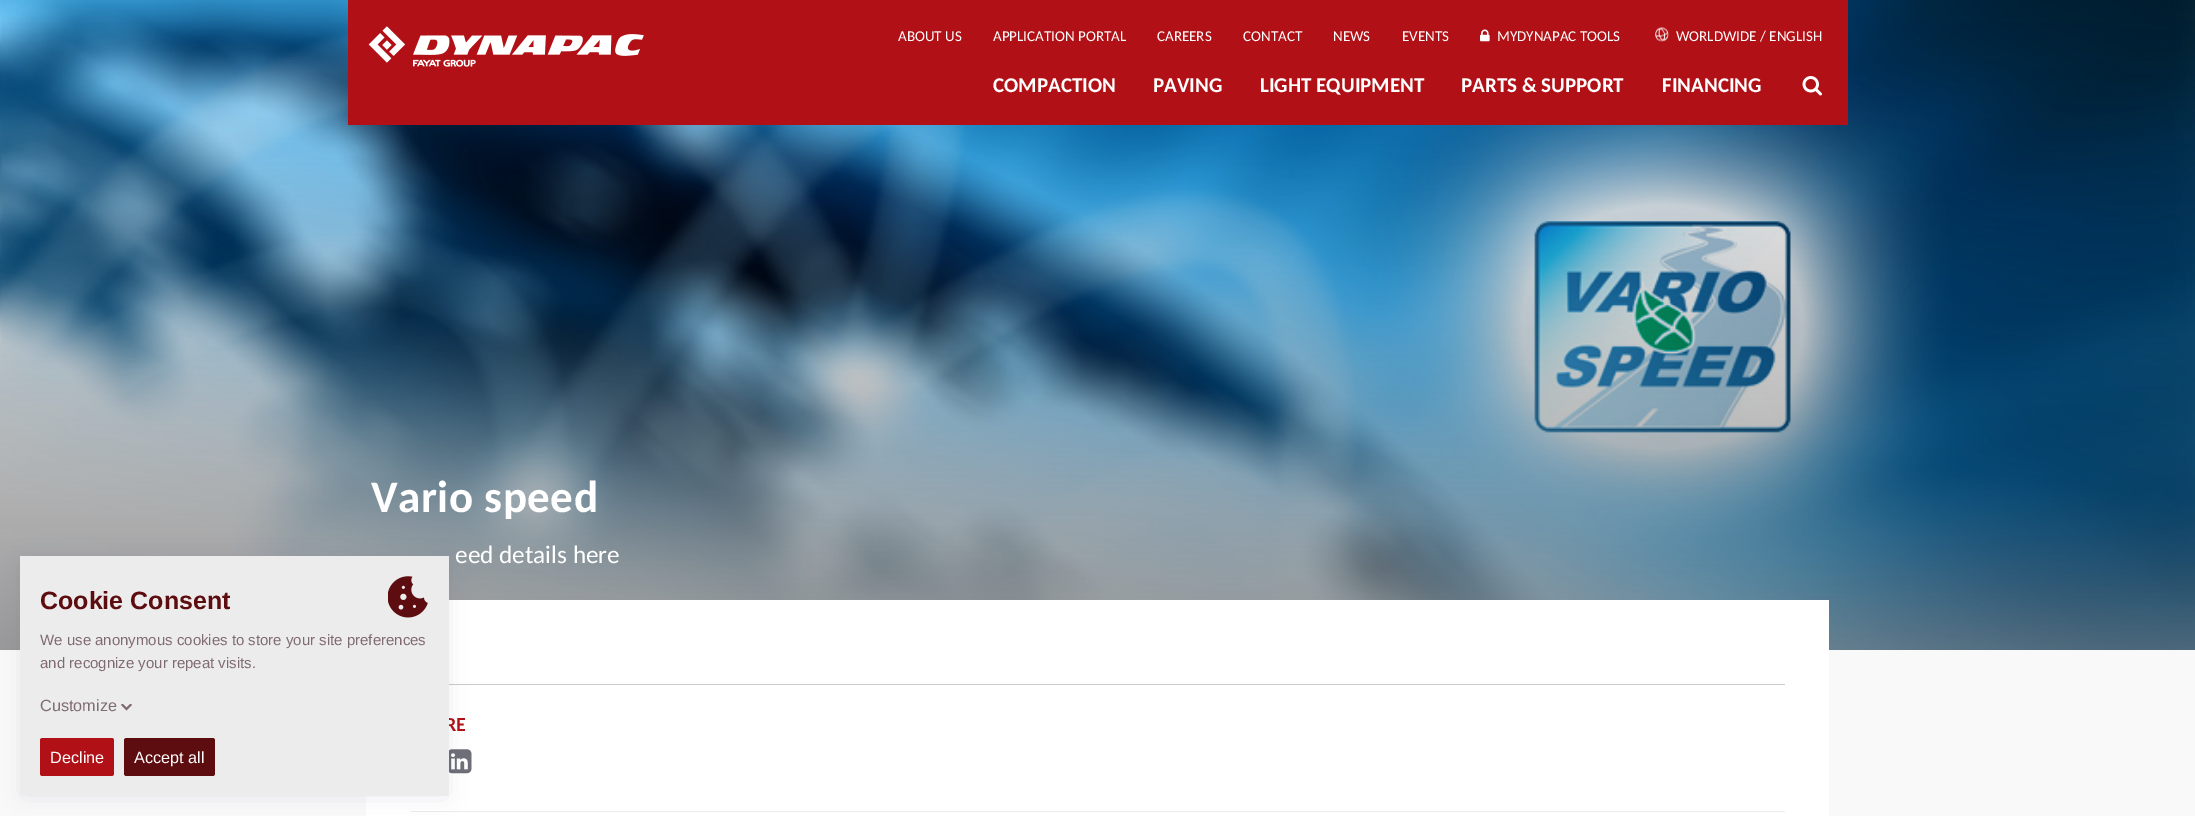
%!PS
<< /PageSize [2195 816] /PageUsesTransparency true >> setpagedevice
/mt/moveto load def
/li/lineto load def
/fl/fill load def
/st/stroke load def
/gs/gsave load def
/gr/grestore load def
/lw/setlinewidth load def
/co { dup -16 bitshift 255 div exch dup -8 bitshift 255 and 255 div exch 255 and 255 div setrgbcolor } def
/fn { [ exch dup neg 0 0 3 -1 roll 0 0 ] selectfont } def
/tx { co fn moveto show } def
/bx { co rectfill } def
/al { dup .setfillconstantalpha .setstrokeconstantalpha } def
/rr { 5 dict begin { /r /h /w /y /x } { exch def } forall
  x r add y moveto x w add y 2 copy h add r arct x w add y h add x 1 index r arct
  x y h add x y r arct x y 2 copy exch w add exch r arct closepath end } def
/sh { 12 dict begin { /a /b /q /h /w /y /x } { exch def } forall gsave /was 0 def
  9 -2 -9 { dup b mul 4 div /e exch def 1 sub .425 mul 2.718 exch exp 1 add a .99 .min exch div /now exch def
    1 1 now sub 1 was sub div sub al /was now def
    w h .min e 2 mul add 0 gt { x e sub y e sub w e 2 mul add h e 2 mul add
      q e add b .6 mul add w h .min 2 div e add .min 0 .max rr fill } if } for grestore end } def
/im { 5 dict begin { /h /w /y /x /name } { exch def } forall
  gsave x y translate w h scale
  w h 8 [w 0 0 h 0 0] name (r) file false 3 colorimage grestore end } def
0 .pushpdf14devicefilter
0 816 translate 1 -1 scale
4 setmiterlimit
0 0 2195 816 16#F9F9F9 bx
(media/5.raw) 0 0 2195 650 im
348 0 1500 125 16#B11116 bx
(media/1.raw) 368 26 276 41 im
(media/2.raw) 1480 29 10 13 im
(media/3.raw) 1655 27 14 15 im
(media/4.raw) 1802 76 20 20 im
366 600 1463 216 16#FFFFFF bx
449 684 1336 1 16#CCCACA bx
410 811 1375 1 16#ECECEC bx
(media/7.raw) 449 749 23 25 im
16#01013F co
25 564 419 230 0 12 .1 sh
(ABOUT US) 898 41 /Carlito-Regular 15 16#FFFFFF tx
(APPLICATION PORTAL) 993 41 /Carlito-Regular 15 16#FFFFFF tx
(CAREERS) 1157 41 /Carlito-Regular 15 16#FFFFFF tx
(CONTACT) 1243 41 /Carlito-Regular 15 16#FFFFFF tx
(NEWS) 1333 41 /Carlito-Regular 15 16#FFFFFF tx
(EVENTS) 1402 41 /Carlito-Regular 15 16#FFFFFF tx
(MYDYNAPAC TOOLS) 1497 41 /Carlito-Regular 15 16#FFFFFF tx
(WORLDWIDE / ENGLISH) 1676 41 /Carlito-Regular 15 16#FFFFFF tx
(COMPACTION) 993 92 /Carlito-Bold 21 16#FFFFFF tx
(PAVING) 1153 92 /Carlito-Bold 21 16#FFFFFF tx
(LIGHT EQUIPMENT) 1260 92 /Carlito-Bold 21 16#FFFFFF tx
(PARTS & SUPPORT) 1461 92 /Carlito-Bold 21 16#FFFFFF tx
(FINANCING) 1662 92 /Carlito-Bold 21 16#FFFFFF tx
/Carlito-Bold 45 fn
371 512 mt .5 0 (Vario speed) ashow
(eed details here) 455 563 /Carlito-Regular 25.25 16#FFFFFF tx
(RE) 445 731 /Carlito-Bold 20 16#B11116 tx
20 556 429 240 16#ECECEC bx
gs
121 704 12 7 rectclip
16#806B70 co
1.8 lw
1 setlinecap
122 704.5 mt 126.5 709 li 131 704.5 li st
gr
(media/6.raw) 388 576 40 42 im
16#5D0C0F co
124 738 91 38 2.5 rr fl
(Accept all) 134 763 /LiberationSans-Regular 16.25 16#FFFFFF tx
16#B11116 co
40 738 74 38 2.5 rr fl
(Decline) 50 763 /LiberationSans-Regular 16.25 16#FFFFFF tx
(Customize) 40 711 /LiberationSans-Regular 16.25 16#806B70 tx
(and recognize your repeat visits.) 40 668 /LiberationSans-Regular 15 16#806B70 tx
(We use anonymous cookies to store your site preferences) 40 645 /LiberationSans-Regular 15 16#806B70 tx
(Cookie Consent) 40 609 /LiberationSans-Bold 25 16#5D0C0F tx
.poppdf14devicefilter showpage
